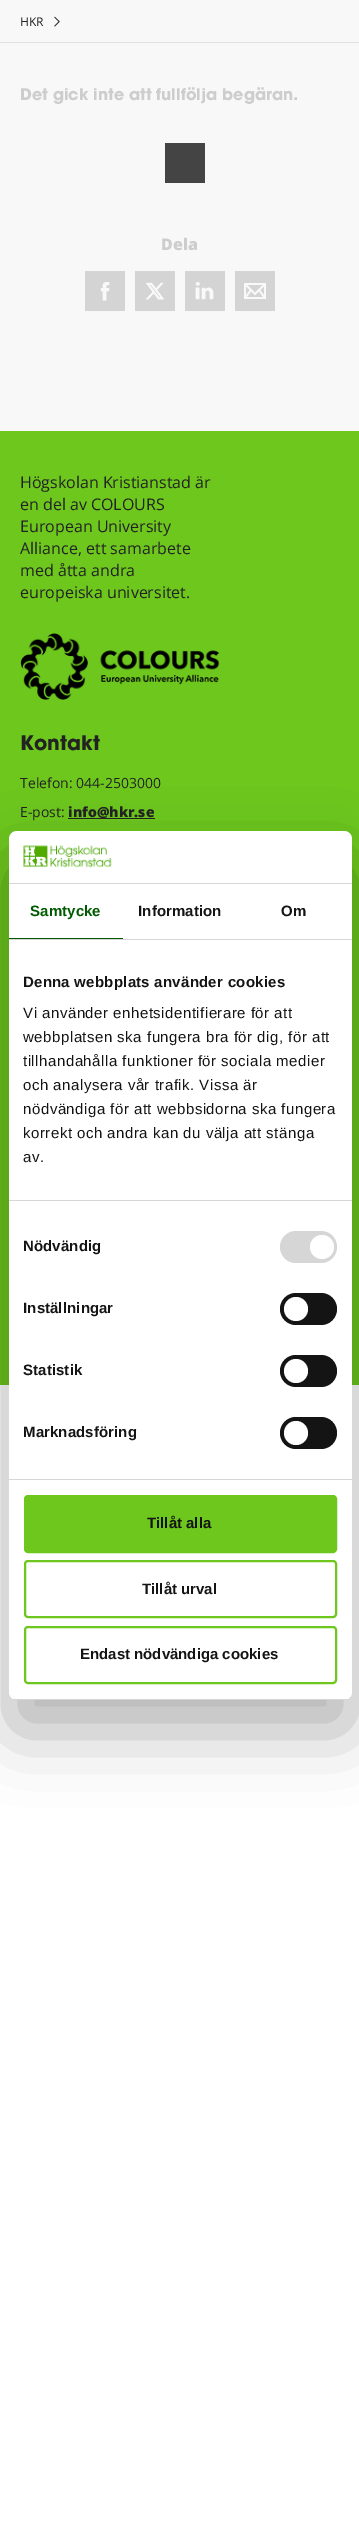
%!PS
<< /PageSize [359 2530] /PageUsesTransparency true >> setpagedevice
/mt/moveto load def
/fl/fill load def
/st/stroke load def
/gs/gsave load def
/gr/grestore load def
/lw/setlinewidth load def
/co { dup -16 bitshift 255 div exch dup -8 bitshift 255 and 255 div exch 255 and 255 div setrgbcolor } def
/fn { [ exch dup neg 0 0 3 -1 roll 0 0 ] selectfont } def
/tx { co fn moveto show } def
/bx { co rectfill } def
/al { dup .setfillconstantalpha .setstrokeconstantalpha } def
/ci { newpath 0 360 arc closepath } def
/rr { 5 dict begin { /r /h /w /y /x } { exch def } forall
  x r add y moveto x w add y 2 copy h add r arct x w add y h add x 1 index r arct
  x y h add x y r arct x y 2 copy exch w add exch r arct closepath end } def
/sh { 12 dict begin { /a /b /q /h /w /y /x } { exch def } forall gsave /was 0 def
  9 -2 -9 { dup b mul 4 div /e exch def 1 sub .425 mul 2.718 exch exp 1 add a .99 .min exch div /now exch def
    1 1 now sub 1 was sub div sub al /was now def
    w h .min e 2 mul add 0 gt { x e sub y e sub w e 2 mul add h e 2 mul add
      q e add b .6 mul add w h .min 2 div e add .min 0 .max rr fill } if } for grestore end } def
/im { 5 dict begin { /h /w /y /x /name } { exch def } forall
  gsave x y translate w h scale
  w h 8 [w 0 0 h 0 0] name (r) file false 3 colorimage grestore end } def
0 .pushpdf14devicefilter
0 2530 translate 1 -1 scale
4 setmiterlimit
0 0 359 2530 16#FFFFFF bx
0 0 359 431 16#F8F8F8 bx
0 42 359 1 16#E1E1E1 bx
(media/1.raw) 54 16 6 11 im
165 143 40 40 16#444444 bx
(media/2.raw) 85 271 40 40 im
(media/3.raw) 135 271 40 40 im
(media/4.raw) 185 271 40 40 im
(media/5.raw) 235 271 40 40 im
0 431 359 954 16#6DC71D bx
(media/6.raw) 20 633 200 67 im
68 818 87 1 16#222222 bx
16#000000 co
9 863 343 869 8 34 .3 sh
16#FFFFFF co
9 831 343 869 8 rr fl
9 883 343 1 16#D6D6D6 bx
(media/7.raw) 23 845 89 23 im
9 939 343 1 16#D6D6D6 bx
9 938 114 1 16#005A00 bx
9 1200 343 1 16#D6D6D6 bx
9 1479 343 1 16#D6D6D6 bx
280 1231 57 32 16 rr fl
16#FFFFFF co
322 1247 12 ci fl
16#141414 co
280 1293 57 32 16 rr fl
16#FFFFFF co
296 1309 12 ci fl
16#141414 co
280 1355 57 32 16 rr fl
16#FFFFFF co
296 1371 12 ci fl
16#141414 co
280 1417 57 32 16 rr fl
16#FFFFFF co
296 1433 12 ci fl
gs
9 831 343 869 8 rr clip newpath
9 1699 343 1 16#D6D6D6 bx
gr
16#6DC71D co
25 1496 311 56 3 rr gs fl gr
2 lw
st
25 1561 311 56 3 rr st
25 1627 311 56 3 rr st
(HKR) 20 26 /OpenSans-Regular 12 16#222222 tx
(Det gick inte att fullfölja begäran.) 20 100 /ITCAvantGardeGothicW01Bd-Bold 16 16#CDCDCD tx
(Dela) 161 250 /OpenSans-ExtraBold 16 16#CDCDCD tx
(Högskolan Kristianstad är) 20 488 /OpenSans-Regular 16 16#222222 tx
(en del av COLOURS) 20 510 /OpenSans-Regular 16 16#222222 tx
(European University) 20 532 /OpenSans-Regular 16 16#222222 tx
(Alliance, ett samarbete) 20 554 /OpenSans-Regular 16 16#222222 tx
(med åtta andra) 20 576 /OpenSans-Regular 16 16#222222 tx
(europeiska universitet.) 20 598 /OpenSans-Regular 16 16#222222 tx
(Kontakt) 20 750 /ITCAvantGardeGothicW01Bd-Bold 20 16#222222 tx
(Telefon: 044-2503000) 20 788 /OpenSans-Regular 14 16#222222 tx
(E-post:) 20 817 /OpenSans-Regular 14 16#222222 tx
(info@hkr.se) 68 817 /OpenSans-ExtraBold 14 16#222222 tx
/LiberationSans-Bold 15 fn
16#005A00 co
30 916 mt .1 0 (Samtycke) ashow
16#141414 co
138 916 mt .1 0 (Information) ashow
281 916 mt .1 0 (Om) ashow
23 987 mt .25 0 (Denna webbplats använder cookies) ashow
/LiberationSans-Regular 15 fn
23 1018 mt .5 0 (Vi använder enhetsidentifierare för att) ashow
23 1042 mt .5 0 (webbplatsen ska fungera bra för dig, för att) ashow
23 1066 mt .5 0 (tillhandahålla funktioner för sociala medier) ashow
23 1090 mt .5 0 (och analysera vår trafik. Vissa är) ashow
23 1114 mt .5 0 (nödvändiga för att webbsidorna ska fungera) ashow
23 1138 mt .5 0 (korrekt och andra kan du välja att stänga) ashow
23 1162 mt .5 0 (av.) ashow
/LiberationSans-Bold 15 fn
23 1251 mt .1 0 (Nödvändig) ashow
23 1313 mt .1 0 (Inställningar) ashow
23 1375 mt .1 0 (Statistik) ashow
23 1437 mt .1 0 (Marknadsföring) ashow
(Tillåt alla) 147 1528 /LiberationSans-Bold 15 16#141414 tx
(Tillåt urval) 142 1594 /LiberationSans-Bold 15 16#141414 tx
(Endast nödvändiga cookies) 80 1659 /LiberationSans-Bold 15 16#141414 tx
.poppdf14devicefilter showpage
